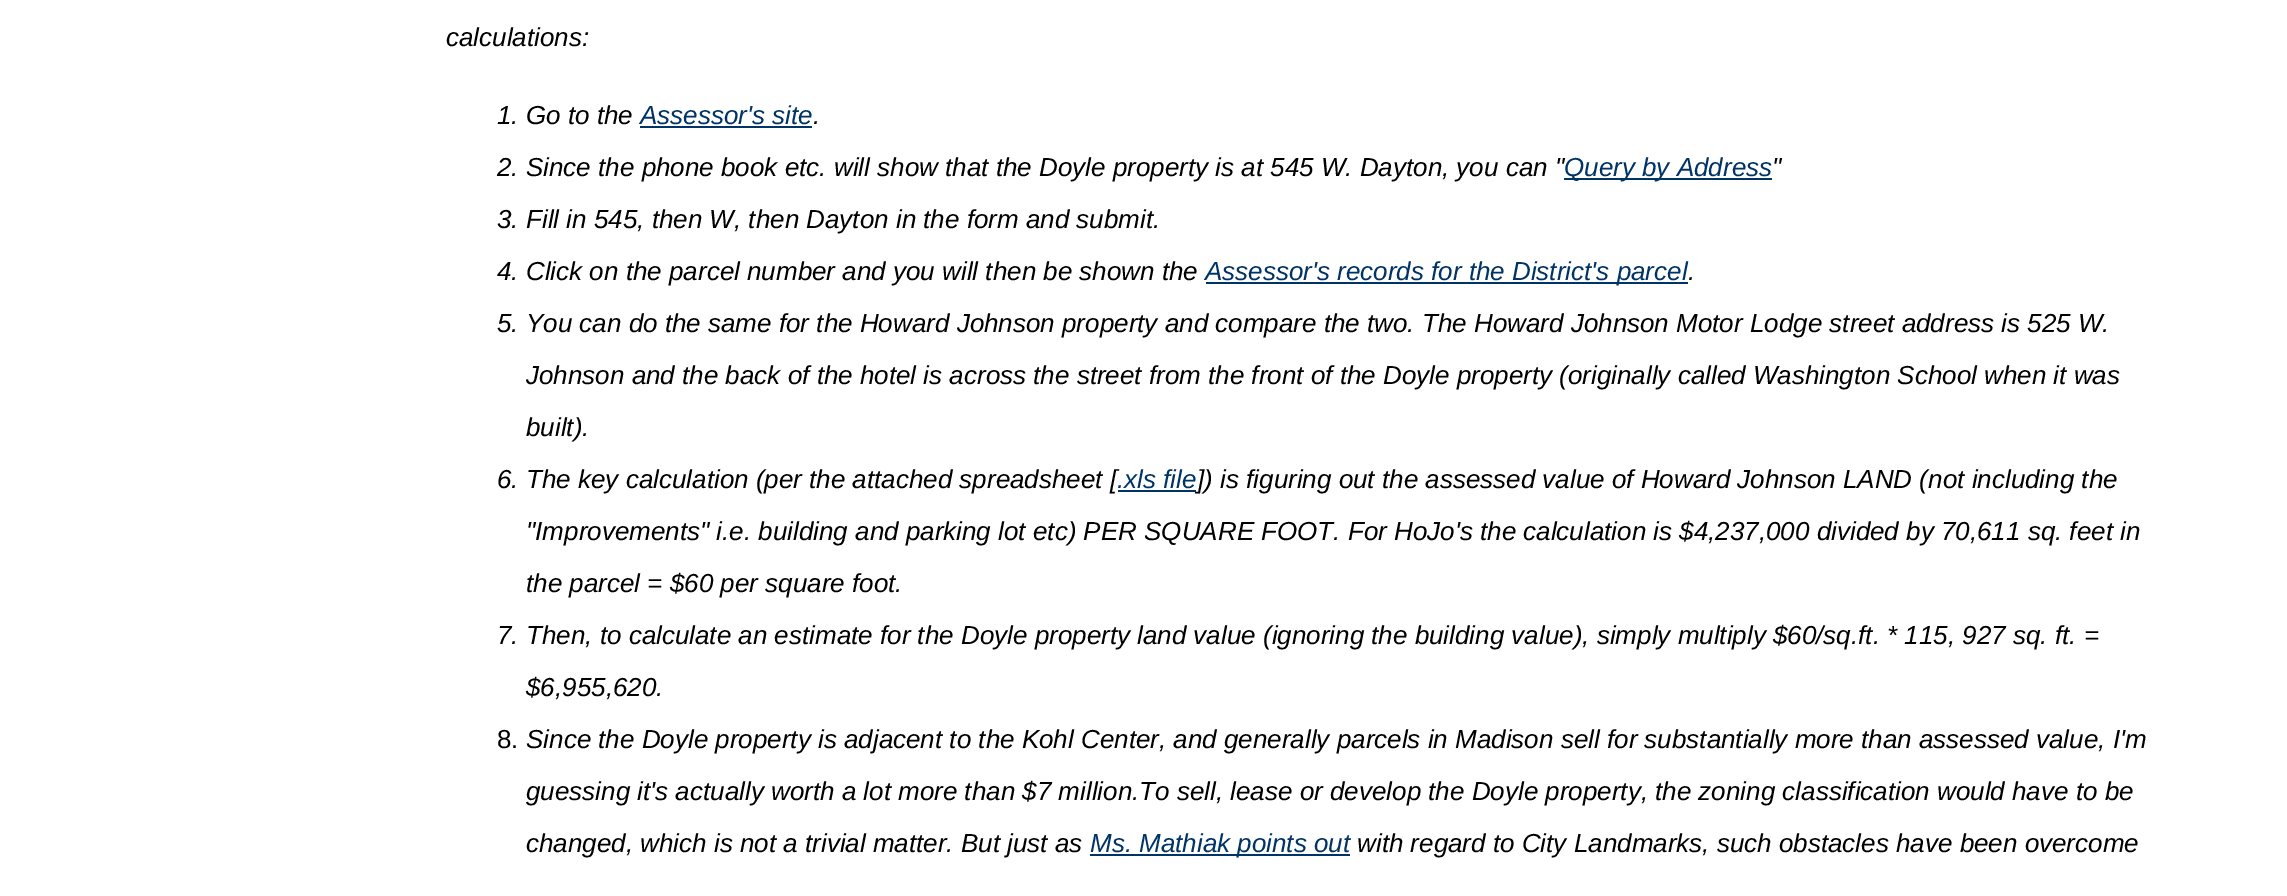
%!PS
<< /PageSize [2287 896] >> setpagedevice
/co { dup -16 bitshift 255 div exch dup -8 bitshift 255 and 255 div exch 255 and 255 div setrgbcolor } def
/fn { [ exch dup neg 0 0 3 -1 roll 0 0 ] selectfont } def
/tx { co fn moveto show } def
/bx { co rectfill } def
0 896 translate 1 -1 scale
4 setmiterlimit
0 0 2287 896 16#FFFFFF bx
640 126 172 2 16#003366 bx
1206 282 482 2 16#003366 bx
1090 854 260 2 16#003366 bx
(calculations:) 446 46 /LiberationSans-Italic 26 16#000000 tx
(1. Go to the) 497 124 /LiberationSans-Italic 26 16#000000 tx
(Assessor's site) 640 124 /LiberationSans-Italic 26 16#003366 tx
(.) 813 124 /LiberationSans-Italic 26 16#000000 tx
(2. Since the phone book etc. will show that the Doyle property is at 545 W. Dayton, you can ") 497 176 /LiberationSans-Italic 26 16#000000 tx
1564 178 208 2 16#003366 bx
(Query by Address) 1564 176 /LiberationSans-Italic 26 16#003366 tx
(") 1772 176 /LiberationSans-Italic 26 16#000000 tx
(3. Fill in 545, then W, then Dayton in the form and submit.) 497 228 /LiberationSans-Italic 26 16#000000 tx
(4. Click on the parcel number and you will then be shown the) 497 280 /LiberationSans-Italic 26 16#000000 tx
(Assessor's records for the District's parcel) 1205 280 /LiberationSans-Italic 26 16#003366 tx
(.) 1688 280 /LiberationSans-Italic 26 16#000000 tx
(5. You can do the same for the Howard Johnson property and compare the two. The Howard Johnson Motor Lodge street address is 525 W.) 497 332 /LiberationSans-Italic 26 16#000000 tx
(Johnson and the back of the hotel is across the street from the front of the Doyle property \(originally called Washington School when it was) 526 384 /LiberationSans-Italic 26 16#000000 tx
(built\).) 526 436 /LiberationSans-Italic 26 16#000000 tx
(6. The key calculation \(per the attached spreadsheet [) 497 488 /LiberationSans-Italic 26 16#000000 tx
(.xls file) 1117 488 /LiberationSans-Italic 26 16#003366 tx
1118 490 78 2 16#003366 bx
(]\) is figuring out the assessed value of Howard Johnson LAND \(not including the) 1197 488 /LiberationSans-Italic 26 16#000000 tx
("Improvements" i.e. building and parking lot etc\) PER SQUARE FOOT. For HoJo's the calculation is $4,237,000 divided by 70,611 sq. feet in) 526 540 /LiberationSans-Italic 26 16#000000 tx
(the parcel = $60 per square foot.) 526 592 /LiberationSans-Italic 26 16#000000 tx
(7. Then, to calculate an estimate for the Doyle property land value \(ignoring the building value\), simply multiply $60/sq.ft. * 115, 927 sq. ft. =) 497 644 /LiberationSans-Italic 26 16#000000 tx
($6,955,620.) 526 696 /LiberationSans-Italic 26 16#000000 tx
(8.) 497 748 /LiberationSans-Regular 26 16#000000 tx
(Since the Doyle property is adjacent to the Kohl Center, and generally parcels in Madison sell for substantially more than assessed value, I'm) 526 748 /LiberationSans-Italic 26 16#000000 tx
(guessing it's actually worth a lot more than $7 million.To sell, lease or develop the Doyle property, the zoning classification would have to be) 526 800 /LiberationSans-Italic 26 16#000000 tx
(changed, which is not a trivial matter. But just as) 526 852 /LiberationSans-Italic 26 16#000000 tx
(Ms. Mathiak points out) 1090 852 /LiberationSans-Italic 26 16#003366 tx
(with regard to City Landmarks, such obstacles have been overcome) 1357 852 /LiberationSans-Italic 26 16#000000 tx
showpage
